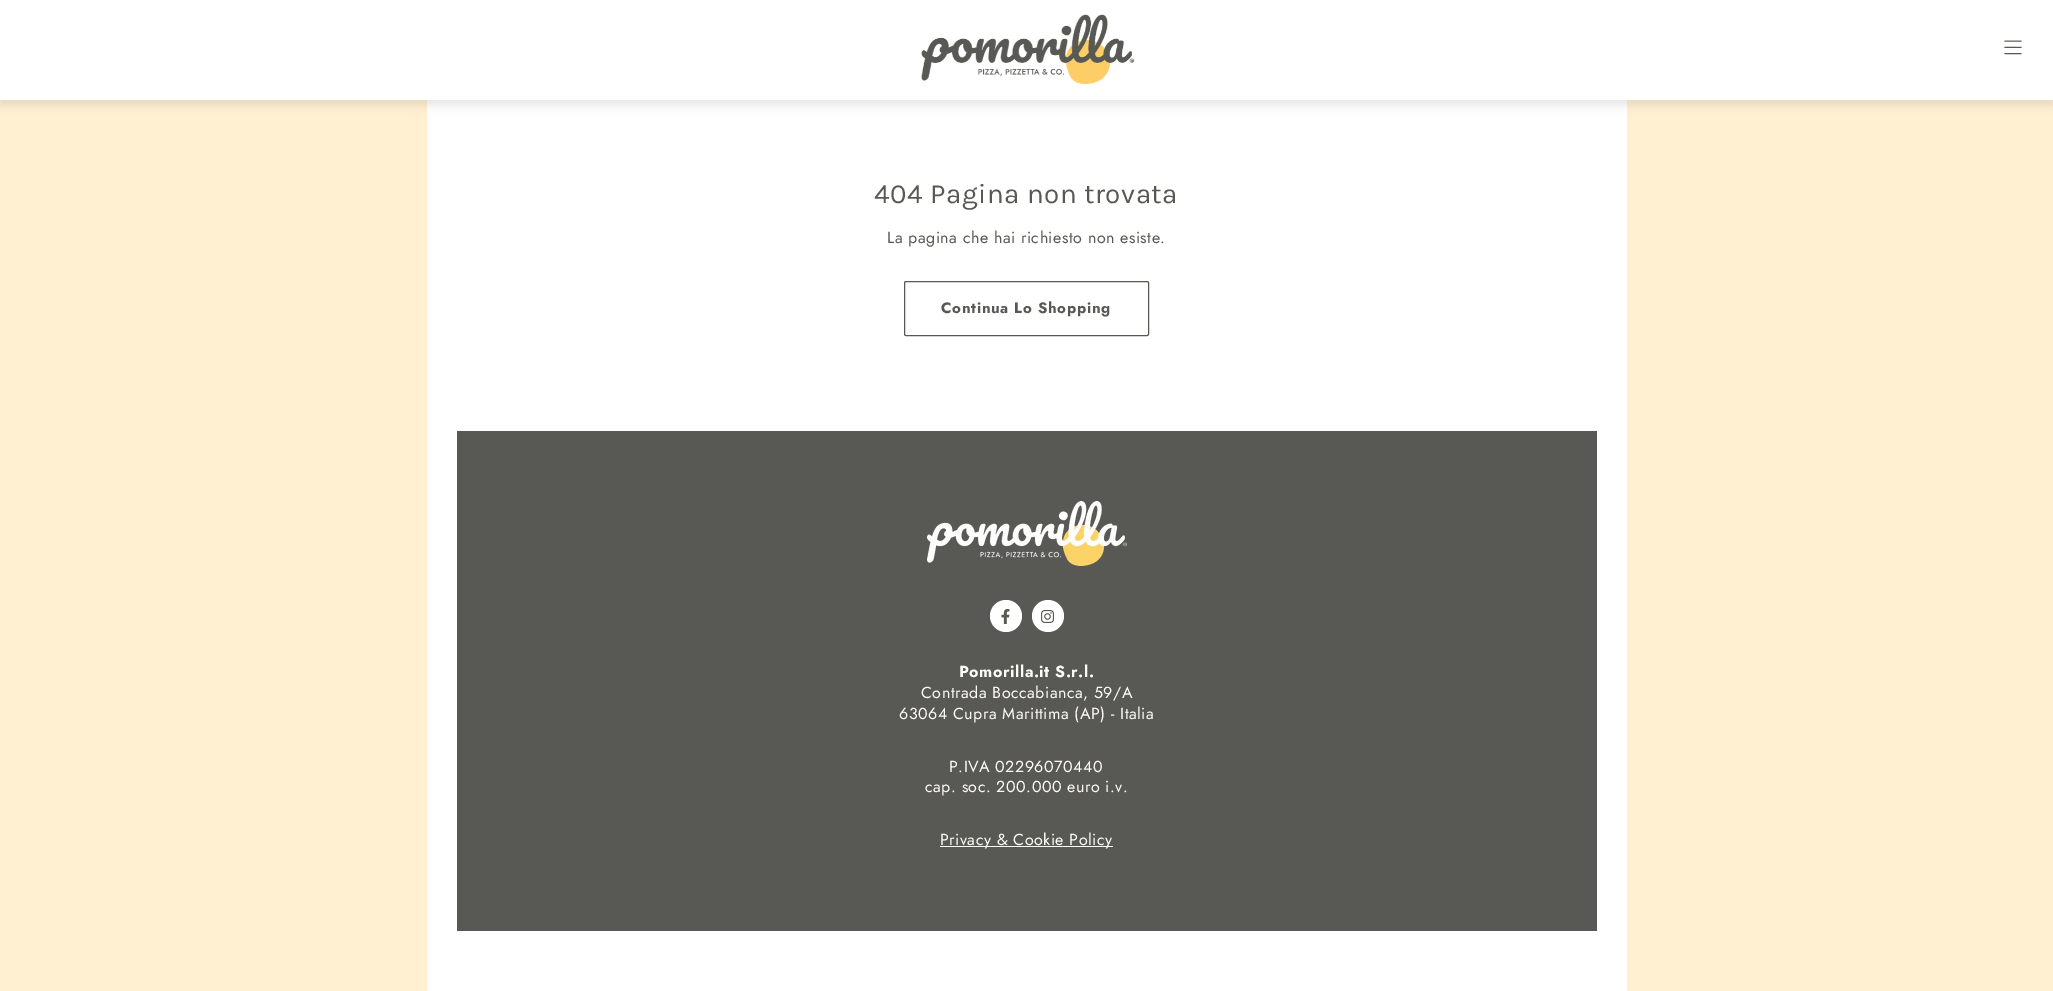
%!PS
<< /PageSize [2053 991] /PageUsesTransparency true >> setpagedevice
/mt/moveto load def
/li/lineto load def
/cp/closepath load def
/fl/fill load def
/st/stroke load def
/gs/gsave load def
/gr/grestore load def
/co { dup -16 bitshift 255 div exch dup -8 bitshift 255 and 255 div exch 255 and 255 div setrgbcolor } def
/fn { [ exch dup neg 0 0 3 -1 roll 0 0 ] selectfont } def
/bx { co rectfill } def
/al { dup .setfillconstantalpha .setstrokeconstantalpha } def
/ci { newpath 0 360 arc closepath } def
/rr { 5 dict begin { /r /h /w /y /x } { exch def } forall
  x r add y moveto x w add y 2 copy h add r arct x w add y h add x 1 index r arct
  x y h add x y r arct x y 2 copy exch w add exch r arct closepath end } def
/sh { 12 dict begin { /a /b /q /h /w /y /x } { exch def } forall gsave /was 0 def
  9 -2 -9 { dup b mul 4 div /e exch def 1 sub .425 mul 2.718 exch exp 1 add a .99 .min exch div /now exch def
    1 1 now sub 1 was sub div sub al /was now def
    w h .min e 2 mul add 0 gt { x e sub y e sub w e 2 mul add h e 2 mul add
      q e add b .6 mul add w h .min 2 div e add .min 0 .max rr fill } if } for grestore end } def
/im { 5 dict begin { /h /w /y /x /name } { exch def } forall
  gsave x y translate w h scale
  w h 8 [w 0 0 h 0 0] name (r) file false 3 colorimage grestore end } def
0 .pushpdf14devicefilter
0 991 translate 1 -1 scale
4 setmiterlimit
0 0 2053 991 16#FFFFFF bx
gs 0 100 mt 2053 100 li 2053 991 li 0 991 li cp clip newpath
<< /ShadingType 2 /ColorSpace /DeviceRGB /Coords [0 496 2053 495] /Extend [true true] /Function << /FunctionType 3 /Domain [0 1] /Functions [<< /FunctionType 2 /Domain [0 1] /C0 [1 .941 .824] /C1 [1 .941 .824] /N 1 >> << /FunctionType 2 /Domain [0 1] /C0 [1 .941 .824] /C1 [.961 .894 .761] /N 1 >> << /FunctionType 2 /Domain [0 1] /C0 [.961 .894 .761] /C1 [.961 .894 .761] /N 1 >> << /FunctionType 2 /Domain [0 1] /C0 [.961 .894 .761] /C1 [1 .941 .824] /N 1 >> << /FunctionType 2 /Domain [0 1] /C0 [1 .941 .824] /C1 [1 .941 .824] /N 1 >>] /Bounds [.31 .33 .67 .69] /Encode [0 1 0 1 0 1 0 1 0 1] >> >> shfill gr
427 100 1200 891 16#FFFFFF bx
16#000000 co
0 5 2053 100 0 5 .1 sh
0 0 2053 100 16#FFFFFF bx
(media/1.raw) 921 14 214 71 im
(media/2.raw) 2004 40 18 15 im
16#585955 co
904.5 281.5 244 54 1.5 rr st
457 431 1140 500 16#585955 bx
457 430 1140 1 16#FEFBF5 bx
(media/3.raw) 927 501 200 65 im
16#FFFFFF co
1006 616 16 ci fl
(media/4.raw) 1001 609 9 15 im
1048 616 16 ci fl
(media/5.raw) 1041 610 13 13 im
940 846 173 1 16#FEFBF5 bx
/Karla-Regular 27.75 fn
16#585955 co
874 203 mt .5 0 (404 Pagina non trovata) ashow
/Jost-Regular 16 fn
887 243 mt .5 0 (La pagina che hai richiesto non esiste.) ashow
/Jost-Bold 15 fn
941 313 mt .75 0 (Continua Lo Shopping) ashow
/Jost-Bold 16 fn
16#FEFBF5 co
959 677 mt .5 0 (Pomorilla.it S.r.l.) ashow
/Jost-Regular 16 fn
921 698 mt .5 0 (Contrada Boccabianca, 59/A) ashow
899 719 mt .5 0 (63064 Cupra Marittima \(AP\) - Italia) ashow
949 772 mt .5 0 (P.IVA 02296070440) ashow
925 792 mt .5 0 (cap. soc. 200.000 euro i.v.) ashow
940 845 mt .5 0 (Privacy & Cookie Policy) ashow
.poppdf14devicefilter showpage
